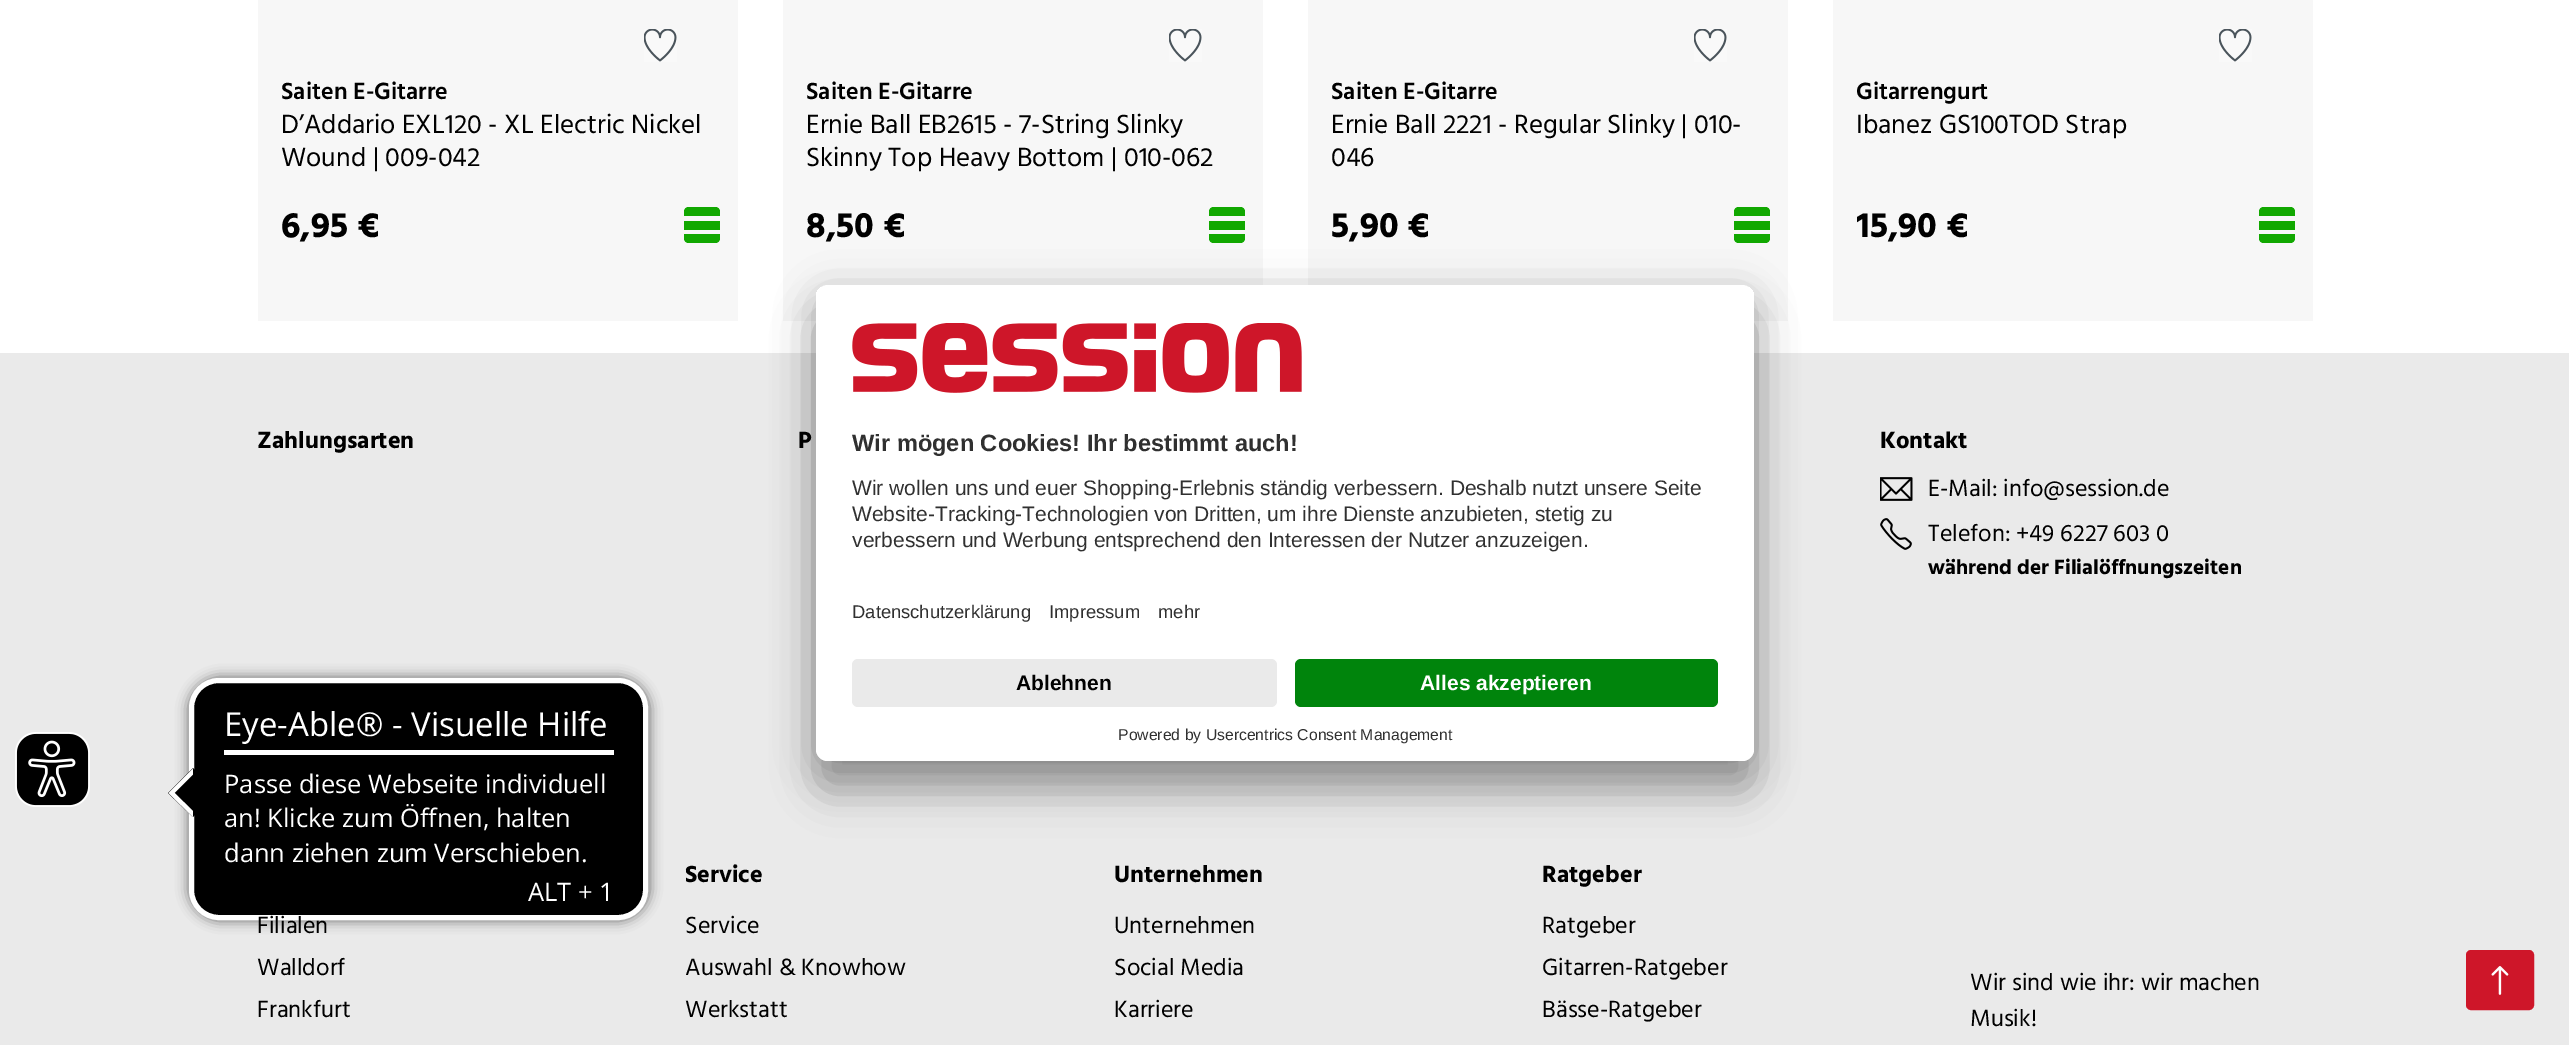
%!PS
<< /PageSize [2569 1045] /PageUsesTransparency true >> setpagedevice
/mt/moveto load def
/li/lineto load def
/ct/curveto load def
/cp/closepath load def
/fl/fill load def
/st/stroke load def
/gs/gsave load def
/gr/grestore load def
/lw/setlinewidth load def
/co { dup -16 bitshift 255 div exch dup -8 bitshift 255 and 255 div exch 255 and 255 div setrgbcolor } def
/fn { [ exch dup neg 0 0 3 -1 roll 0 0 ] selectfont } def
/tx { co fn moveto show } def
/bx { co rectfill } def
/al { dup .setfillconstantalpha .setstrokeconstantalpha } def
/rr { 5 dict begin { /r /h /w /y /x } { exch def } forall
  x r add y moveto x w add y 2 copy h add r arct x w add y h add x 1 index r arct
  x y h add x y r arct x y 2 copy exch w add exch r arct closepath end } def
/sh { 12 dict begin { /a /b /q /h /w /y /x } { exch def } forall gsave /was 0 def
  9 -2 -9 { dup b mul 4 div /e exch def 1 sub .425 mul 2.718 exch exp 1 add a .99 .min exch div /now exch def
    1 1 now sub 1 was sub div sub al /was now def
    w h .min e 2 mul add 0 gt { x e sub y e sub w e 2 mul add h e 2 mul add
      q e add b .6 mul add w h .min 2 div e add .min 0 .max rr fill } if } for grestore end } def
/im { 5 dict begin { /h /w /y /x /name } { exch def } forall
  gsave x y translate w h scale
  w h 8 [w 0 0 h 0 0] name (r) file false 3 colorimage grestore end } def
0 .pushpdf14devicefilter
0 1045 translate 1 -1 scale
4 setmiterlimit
0 0 2569 1045 16#FFFFFF bx
0.03 al
258 0 480 321 16#000000 bx
1 al
(media/1.raw) 644 29 33 33 im
16#11A800 co
688.5 207 mt 715.5 207 li 718 207 720 209 720 211.5 ct 720 216 li 684 216 li 684 211.5 li 684 209 686 207 688.5 207 ct cp fl
684 221 36 9 16#11A800 bx
684 234 mt 720 234 li 720 238.5 li 720 241 718 243 715.5 243 ct 688.5 243 li 686 243 684 241 684 238.5 ct cp fl
0.03 al
783 0 480 321 16#000000 bx
1 al
(media/1.raw) 1169 29 33 33 im
16#11A800 co
1213.5 207 mt 1240.5 207 li 1243 207 1245 209 1245 211.5 ct 1245 216 li 1209 216 li 1209 211.5 li 1209 209 1211 207 1213.5 207 ct cp fl
1209 221 36 9 16#11A800 bx
1209 234 mt 1245 234 li 1245 238.5 li 1245 241 1243 243 1240.5 243 ct 1213.5 243 li 1211 243 1209 241 1209 238.5 ct cp fl
0.03 al
1308 0 480 321 16#000000 bx
1 al
(media/1.raw) 1694 29 33 33 im
16#11A800 co
1738.5 207 mt 1765.5 207 li 1768 207 1770 209 1770 211.5 ct 1770 216 li 1734 216 li 1734 211.5 li 1734 209 1736 207 1738.5 207 ct cp fl
1734 221 36 9 16#11A800 bx
1734 234 mt 1770 234 li 1770 238.5 li 1770 241 1768 243 1765.5 243 ct 1738.5 243 li 1736 243 1734 241 1734 238.5 ct cp fl
0.03 al
1833 0 480 321 16#000000 bx
1 al
(media/1.raw) 2219 29 33 33 im
16#11A800 co
2263.5 207 mt 2290.5 207 li 2293 207 2295 209 2295 211.5 ct 2295 216 li 2259 216 li 2259 211.5 li 2259 209 2261 207 2263.5 207 ct cp fl
2259 221 36 9 16#11A800 bx
2259 234 mt 2295 234 li 2295 238.5 li 2295 241 2293 243 2290.5 243 ct 2263.5 243 li 2261 243 2259 241 2259 238.5 ct cp fl
0 353 2569 692 16#EAEAEA bx
(media/2.raw) 1880 477 33 24 im
(media/3.raw) 1880 518 32 32 im
16#000000 co
816 315 938 476 12 21 .3 sh
816 293 938 475 12 19.5 .22 sh
16#FFFFFF co
816 285 938 476 12 rr fl
gs
816 285 938 476 12 rr clip newpath
828 285 mt 1742 285 li 1748.5 285 1754 290.5 1754 297 ct 1754 647 li 816 647 li 816 297 li 816 290.5 821.5 285 828 285 ct cp clip newpath
816 287 938 360 16#FFFFFF bx
gr
(media/4.raw) 852 323 450 70 im
816 647 mt 1754 647 li 1754 749 li 1754 755.5 1748.5 761 1742 761 ct 828 761 li 821.5 761 816 755.5 816 749 ct cp fl
16#EAEAEA co
852 659 425 48 6 rr fl
16#00840C co
1295 659 423 48 6 rr fl
(media/5.raw) 15 732 75 75 im
16#000000 co
188 677 462 244 32 6 .5 sh
191.5 680.5 454 237 27.5 rr gs fl gr
16#FFFFFF co
5 lw
st
224 750 390 5 16#FFFFFF bx
16#000000 co
193 817 mt 168 793 li 193 768 li 217 793 li cp fl
16#FFFFFF co
193 817 mt 168.5 793 li 174.5 793 li 193 811 li cp 168.5 793 mt 193 768.5 li 193 774.5 li 174.5 793 li cp fl
16#CE1629 co
2467 951 66 58 4 rr gs fl gr
2 lw
st
(media/6.raw) 2491 966 18 29 im
(Saiten E-Gitarre) 281 99 /Hind-SemiBold 24 16#000000 tx
(D’Addario EXL120 - XL Electric Nickel) 281 133 /Hind-Regular 27 16#000000 tx
(Wound | 009-042) 281 166 /Hind-Regular 27 16#000000 tx
(6,95 €) 281 237 /Hind-Bold 36 16#000000 tx
(Saiten E-Gitarre) 806 99 /Hind-SemiBold 24 16#000000 tx
(Ernie Ball EB2615 - 7-String Slinky) 806 133 /Hind-Regular 27 16#000000 tx
(Skinny Top Heavy Bottom | 010-062) 806 166 /Hind-Regular 27 16#000000 tx
(8,50 €) 806 237 /Hind-Bold 36 16#000000 tx
(Saiten E-Gitarre) 1331 99 /Hind-SemiBold 24 16#000000 tx
(Ernie Ball 2221 - Regular Slinky | 010-) 1331 133 /Hind-Regular 27 16#000000 tx
(046) 1331 166 /Hind-Regular 27 16#000000 tx
(5,90 €) 1331 237 /Hind-Bold 36 16#000000 tx
(Gitarrengurt) 1856 99 /Hind-SemiBold 24 16#000000 tx
(Ibanez GS100TOD Strap) 1856 133 /Hind-Regular 27 16#000000 tx
gs
1857 210 113 38 rectclip
(15,90 €) 1856 237 /Hind-Bold 36 16#000000 tx
gr
(Zahlungsarten) 257 448 /Hind-Bold 24 16#000000 tx
(P) 798 448 /Hind-Bold 24 16#000000 tx
(Kontakt) 1880 448 /Hind-Bold 24 16#000000 tx
(E-Mail: info@session.de) 1928 496 /Hind-Regular 24 16#000000 tx
(Telefon: +49 6227 603 0) 1928 541 /Hind-Regular 24 16#000000 tx
(während der Filialöffnungszeiten) 1928 574 /Hind-Bold 21 16#000000 tx
(Filialen) 257 933 /Hind-Regular 24 16#000000 tx
(Walldorf) 257 975 /Hind-Regular 24 16#000000 tx
(Frankfurt) 257 1017 /Hind-Regular 24 16#000000 tx
(Service) 685 882 /Hind-Bold 24 16#000000 tx
(Service) 685 933 /Hind-Regular 24 16#000000 tx
(Auswahl & Knowhow) 685 975 /Hind-Regular 24 16#000000 tx
(Werkstatt) 685 1017 /Hind-Regular 24 16#000000 tx
(Unternehmen) 1114 882 /Hind-Bold 24 16#000000 tx
(Unternehmen) 1114 933 /Hind-Regular 24 16#000000 tx
(Social Media) 1114 975 /Hind-Regular 24 16#000000 tx
(Karriere) 1114 1017 /Hind-Regular 24 16#000000 tx
(Ratgeber) 1542 882 /Hind-Bold 24 16#000000 tx
(Ratgeber) 1542 933 /Hind-Regular 24 16#000000 tx
(Gitarren-Ratgeber) 1542 975 /Hind-Regular 24 16#000000 tx
(Bässe-Ratgeber) 1542 1017 /Hind-Regular 24 16#000000 tx
(Wir sind wie ihr: wir machen) 1970 990 /Hind-Regular 24 16#000000 tx
(Musik!) 1970 1026 /Hind-Regular 24 16#000000 tx
(Wir mögen Cookies! Ihr bestimmt auch!) 852 451 /LiberationSans-Bold 23.6 16#303030 tx
(Wir wollen uns und euer Shopping-Erlebnis ständig verbessern. Deshalb nutzt unsere Seite) 852 495 /LiberationSans-Regular 21 16#303030 tx
(Website-Tracking-Technologien von Dritten, um ihre Dienste anzubieten, stetig zu) 852 521 /LiberationSans-Regular 21 16#303030 tx
(verbessern und Werbung entsprechend den Interessen der Nutzer anzuzeigen.) 852 547 /LiberationSans-Regular 21 16#303030 tx
(Datenschutzerklärung) 852 618 /LiberationSans-Regular 18.4 16#303030 tx
(Impressum) 1049 618 /LiberationSans-Regular 18.4 16#303030 tx
(mehr) 1158 618 /LiberationSans-Regular 18.4 16#303030 tx
(Ablehnen) 1016 690 /LiberationSans-Bold 21 16#000000 tx
(Alles akzeptieren) 1420 690 /LiberationSans-Bold 21 16#FFFFFF tx
(Powered by Usercentrics Consent Management) 1118 740 /LiberationSans-Regular 15.75 16#303030 tx
(Eye-Able® - Visuelle Hilfe) 224 736 /OpenSans-Regular 33 16#FFFFFF tx
(Passe diese Webseite individuell) 224 793 /OpenSans-Regular 25.5 16#FFFFFF tx
(an! Klicke zum Öffnen, halten) 224 827 /OpenSans-Regular 25.5 16#FFFFFF tx
(dann ziehen zum Verschieben.) 224 862 /OpenSans-Regular 25.5 16#FFFFFF tx
(ALT + 1) 528 901 /OpenSans-Regular 25.5 16#FFFFFF tx
.poppdf14devicefilter showpage
